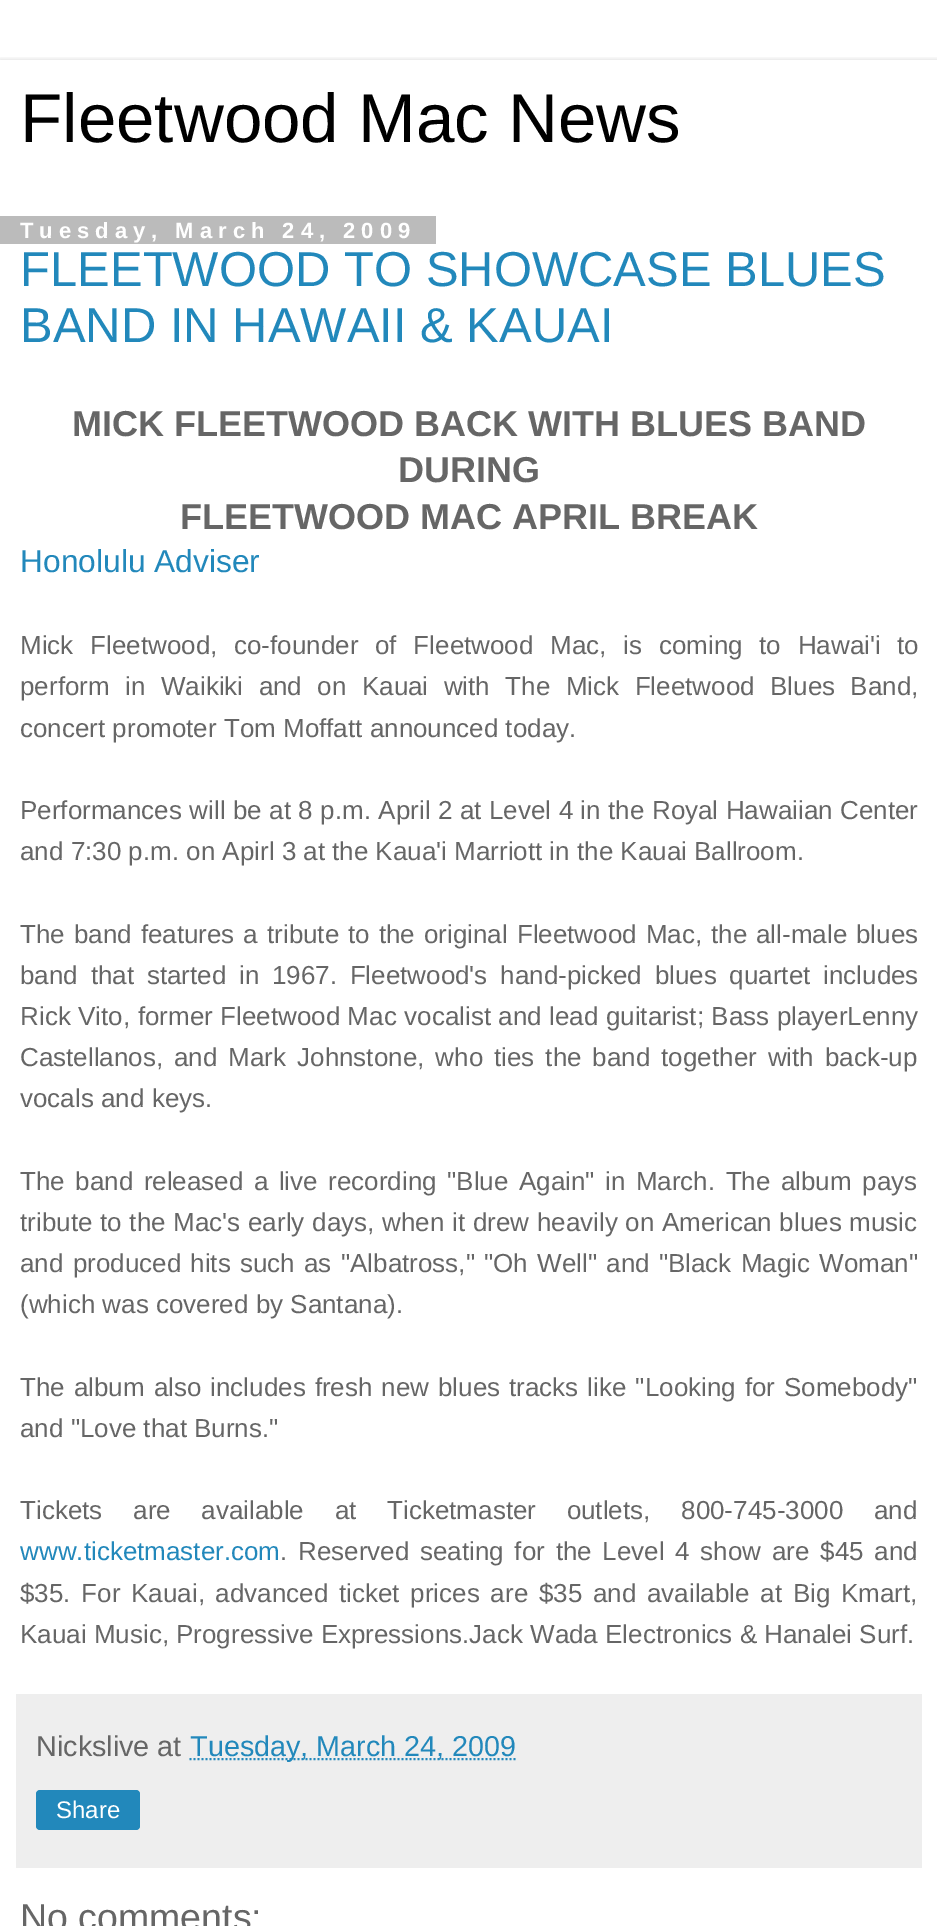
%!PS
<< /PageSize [937 1926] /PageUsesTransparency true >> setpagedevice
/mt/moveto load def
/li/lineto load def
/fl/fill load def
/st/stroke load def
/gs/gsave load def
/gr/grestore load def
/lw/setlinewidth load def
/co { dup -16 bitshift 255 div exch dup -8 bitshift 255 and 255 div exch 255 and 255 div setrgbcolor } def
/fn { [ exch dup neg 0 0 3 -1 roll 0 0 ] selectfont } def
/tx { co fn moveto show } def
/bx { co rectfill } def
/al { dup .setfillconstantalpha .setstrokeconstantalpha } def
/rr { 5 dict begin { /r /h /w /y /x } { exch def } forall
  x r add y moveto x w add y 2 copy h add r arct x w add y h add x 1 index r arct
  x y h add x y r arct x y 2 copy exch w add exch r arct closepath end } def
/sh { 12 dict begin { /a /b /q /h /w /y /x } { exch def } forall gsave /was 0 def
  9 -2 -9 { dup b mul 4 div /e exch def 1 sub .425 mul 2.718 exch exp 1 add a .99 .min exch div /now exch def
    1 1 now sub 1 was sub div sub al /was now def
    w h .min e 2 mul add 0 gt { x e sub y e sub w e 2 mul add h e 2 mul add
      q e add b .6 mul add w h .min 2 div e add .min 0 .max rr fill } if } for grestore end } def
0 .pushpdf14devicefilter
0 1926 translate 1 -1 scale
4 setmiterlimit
0 0 937 1926 16#FFFFFF bx
gs
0 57 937 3 rectclip
16#000000 co
0 60 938 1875 0 3 .15 sh
gr
0 216 436 28 16#BBBBBB bx
16 1694 906 174 16#EEEEEE bx
16#2288BB co
2 lw
[2 2] 0 setdash
189.5 1759 mt 516 1759 li st
36 1790 104 40 4 rr fl
(Fleetwood Mac News) 20 142 /LiberationSans-Regular 69.1 16#000000 tx
/LiberationSans-Bold 22 fn
16#FFFFFF co
20 238 mt 6 0 (Tuesday, March 24, 2009) ashow
(FLEETWOOD TO SHOWCASE BLUES) 20 286 /LiberationSans-Regular 49 16#2288BB tx
(BAND IN HAWAII & KAUAI) 20 342 /LiberationSans-Regular 49 16#2288BB tx
(MICK FLEETWOOD BACK WITH BLUES BAND) 72 436 /LiberationSans-Bold 36 16#666666 tx
(DURING) 398 482 /LiberationSans-Bold 36 16#666666 tx
(FLEETWOOD MAC APRIL BREAK) 180 529 /LiberationSans-Bold 36 16#666666 tx
(Honolulu Adviser) 20 572 /LiberationSans-Regular 31.75 16#2288BB tx
/LiberationSans-Regular 26 fn
16#666666 co
20 654 mt 9.5 0 32 (Mick Fleetwood, co-founder of Fleetwood Mac, is coming to Hawai'i to) widthshow
20 695 mt 8.25 0 32 (perform in Waikiki and on Kauai with The Mick Fleetwood Blues Band,) widthshow
(concert promoter Tom Moffatt announced today.) 20 737 /LiberationSans-Regular 26 16#666666 tx
20 819 mt .25 0 32 (Performances will be at 8 p.m. April 2 at Level 4 in the Royal Hawaiian Center) widthshow
(and 7:30 p.m. on Apirl 3 at the Kaua'i Marriott in the Kauai Ballroom.) 20 860 /LiberationSans-Regular 26 16#666666 tx
20 943 mt 1.75 0 32 (The band features a tribute to the original Fleetwood Mac, the all-male blues) widthshow
20 984 mt 5.5 0 32 (band that started in 1967. Fleetwood's hand-picked blues quartet includes) widthshow
20 1025 mt .25 0 32 (Rick Vito, former Fleetwood Mac vocalist and lead guitarist; Bass playerLenny) widthshow
20 1066 mt 3.75 0 32 (Castellanos, and Mark Johnstone, who ties the band together with back-up) widthshow
(vocals and keys.) 20 1107 /LiberationSans-Regular 26 16#666666 tx
20 1190 mt 3.25 0 32 (The band released a live recording "Blue Again" in March. The album pays) widthshow
20 1231 mt .5 0 32 (tribute to the Mac's early days, when it drew heavily on American blues music) widthshow
20 1272 mt 2 0 32 (and produced hits such as "Albatross," "Oh Well" and "Black Magic Woman") widthshow
(\(which was covered by Santana\).) 20 1313 /LiberationSans-Regular 26 16#666666 tx
20 1396 mt 1.75 0 32 (The album also includes fresh new blues tracks like "Looking for Somebody") widthshow
(and "Love that Burns.") 20 1437 /LiberationSans-Regular 26 16#666666 tx
20 1519 mt 23.5 0 32 (Tickets are available at Ticketmaster outlets, 800-745-3000 and) widthshow
(www.ticketmaster.com) 20 1560 /LiberationSans-Regular 26 16#2288BB tx
16#666666 co
280 1560 mt 3.5 0 32 (. Reserved seating for the Level 4 show are $45 and) widthshow
20 1602 mt 3.5 0 32 ($35. For Kauai, advanced ticket prices are $35 and available at Big Kmart,) widthshow
(Kauai Music, Progressive Expressions.Jack Wada Electronics & Hanalei Surf.) 20 1643 /LiberationSans-Regular 26 16#666666 tx
(Nickslive at) 36 1756 /LiberationSans-Regular 28.75 16#666666 tx
(Tuesday, March 24, 2009) 190 1756 /LiberationSans-Regular 28.75 16#2288BB tx
(Share) 56 1818 /LiberationSans-Regular 24 16#FFFFFF tx
(No comments:) 20 1930 /LiberationSans-Regular 37.5 16#666666 tx
.poppdf14devicefilter showpage
